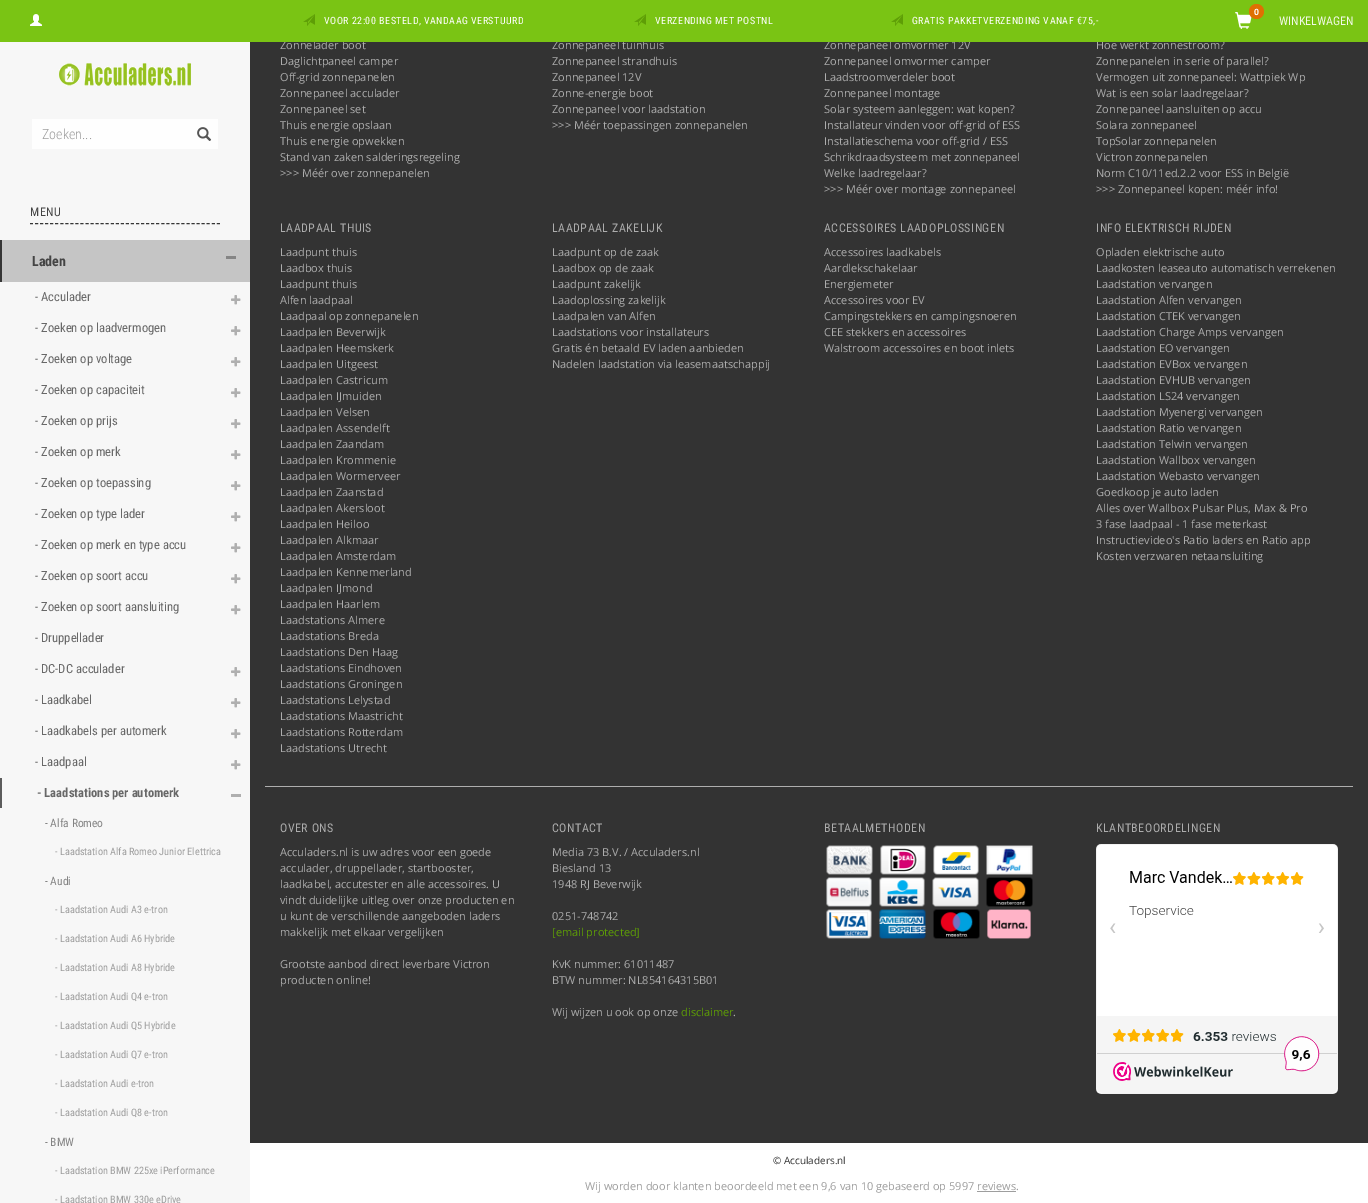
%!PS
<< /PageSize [1368 1203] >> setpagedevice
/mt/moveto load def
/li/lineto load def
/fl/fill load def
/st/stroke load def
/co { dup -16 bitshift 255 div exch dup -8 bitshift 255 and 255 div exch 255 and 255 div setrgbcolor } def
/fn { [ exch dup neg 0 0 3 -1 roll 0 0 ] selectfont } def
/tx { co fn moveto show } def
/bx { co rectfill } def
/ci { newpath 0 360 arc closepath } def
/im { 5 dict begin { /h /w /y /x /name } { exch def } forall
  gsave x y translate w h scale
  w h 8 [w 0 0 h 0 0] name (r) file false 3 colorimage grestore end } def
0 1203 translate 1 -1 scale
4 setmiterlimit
0 0 1368 1203 16#FFFFFF bx
0 42 250 198 16#F7F7F7 bx
(media/4.raw) 59 63 132 23 im
32 119 186 30 16#FEFEFE bx
(media/5.raw) 197 127 15 14 im
16#353535 co
[3 2.05] 0 setdash
30 223.5 mt 220 223.5 li st
2 240 248 42 16#C5C5C5 bx
0 240 2 42 16#353535 bx
226 256 10 3 16#858585 bx
0 282 250 921 16#F7F7F7 bx
(media/6.raw) 231 295 10 10 im
(media/6.raw) 231 326 10 10 im
(media/6.raw) 231 357 10 10 im
(media/6.raw) 231 388 10 10 im
(media/6.raw) 231 419 10 10 im
(media/6.raw) 231 450 10 10 im
(media/6.raw) 231 481 10 10 im
(media/6.raw) 231 512 10 10 im
(media/6.raw) 231 543 10 10 im
(media/6.raw) 231 574 10 10 im
(media/6.raw) 231 605 10 10 im
(media/6.raw) 231 667 10 10 im
(media/6.raw) 231 698 10 10 im
(media/6.raw) 231 729 10 10 im
(media/6.raw) 231 760 10 10 im
0 778 2 30 16#5C5C5C bx
231 794 10 3 16#AFAFAF bx
250 42 1118 1101 16#333333 bx
265 786 1088 1 16#AEAEAE bx
(media/7.raw) 826 845 47 30 im
(media/8.raw) 880 845 46 30 im
(media/9.raw) 933 845 46 30 im
(media/10.raw) 986 845 47 30 im
(media/11.raw) 826 877 46 30 im
(media/12.raw) 879 877 46 30 im
(media/13.raw) 932 877 47 30 im
(media/14.raw) 986 877 47 30 im
(media/15.raw) 826 909 46 30 im
(media/16.raw) 879 909 47 30 im
(media/17.raw) 933 909 47 30 im
(media/18.raw) 987 909 44 30 im
(media/19.raw) 1096 844 242 250 im
977 1191 39 1 16#9E9E9E bx
(Zoeken...) 42 139 /RobotoCondensed-Light 14 16#9E9E9E tx
/RobotoCondensed-Regular 12 fn
16#444444 co
30 216 mt .5 0 (MENU) ashow
(Laden) 32 266 /RobotoCondensed-Bold 14 16#444444 tx
(- Acculader) 35 301 /RobotoCondensed-Regular 12.6 16#686868 tx
(- Zoeken op laadvermogen) 35 332 /RobotoCondensed-Regular 12.6 16#686868 tx
(- Zoeken op voltage) 35 363 /RobotoCondensed-Regular 12.6 16#686868 tx
(- Zoeken op capaciteit) 35 394 /RobotoCondensed-Regular 12.6 16#686868 tx
(- Zoeken op prijs) 35 425 /RobotoCondensed-Regular 12.6 16#686868 tx
(- Zoeken op merk) 35 456 /RobotoCondensed-Regular 12.6 16#686868 tx
(- Zoeken op toepassing) 35 487 /RobotoCondensed-Regular 12.6 16#686868 tx
(- Zoeken op type lader) 35 518 /RobotoCondensed-Regular 12.6 16#686868 tx
(- Zoeken op merk en type accu) 35 549 /RobotoCondensed-Regular 12.6 16#686868 tx
(- Zoeken op soort accu) 35 580 /RobotoCondensed-Regular 12.6 16#686868 tx
(- Zoeken op soort aansluiting) 35 611 /RobotoCondensed-Regular 12.6 16#686868 tx
(- Druppellader) 35 642 /RobotoCondensed-Regular 12.6 16#686868 tx
(- DC-DC acculader) 35 673 /RobotoCondensed-Regular 12.6 16#686868 tx
(- Laadkabel) 35 704 /RobotoCondensed-Regular 12.6 16#686868 tx
(- Laadkabels per automerk) 35 735 /RobotoCondensed-Regular 12.6 16#686868 tx
(- Laadpaal) 35 766 /RobotoCondensed-Regular 12.6 16#686868 tx
(- Laadstations per automerk) 37 797 /RobotoCondensed-Bold 12.6 16#686868 tx
(- Alfa Romeo) 45 827 /RobotoCondensed-Regular 11.5 16#848484 tx
(- Laadstation Alfa Romeo Junior Elettrica) 55 855 /RobotoCondensed-Regular 10.25 16#9E9E9E tx
(- Audi) 45 885 /RobotoCondensed-Regular 11.5 16#848484 tx
(- Laadstation Audi A3 e-tron) 55 913 /RobotoCondensed-Regular 10.25 16#9E9E9E tx
(- Laadstation Audi A6 Hybride) 55 942 /RobotoCondensed-Regular 10.25 16#9E9E9E tx
(- Laadstation Audi A8 Hybride) 55 971 /RobotoCondensed-Regular 10.25 16#9E9E9E tx
(- Laadstation Audi Q4 e-tron) 55 1000 /RobotoCondensed-Regular 10.25 16#9E9E9E tx
(- Laadstation Audi Q5 Hybride) 55 1029 /RobotoCondensed-Regular 10.25 16#9E9E9E tx
(- Laadstation Audi Q7 e-tron) 55 1058 /RobotoCondensed-Regular 10.25 16#9E9E9E tx
(- Laadstation Audi e-tron) 55 1087 /RobotoCondensed-Regular 10.25 16#9E9E9E tx
(- Laadstation Audi Q8 e-tron) 55 1116 /RobotoCondensed-Regular 10.25 16#9E9E9E tx
(- BMW) 45 1146 /RobotoCondensed-Regular 11.5 16#848484 tx
(- Laadstation BMW 225xe iPerformance) 55 1174 /RobotoCondensed-Regular 10.25 16#9E9E9E tx
(- Laadstation BMW 330e eDrive) 55 1203 /RobotoCondensed-Regular 10.25 16#9E9E9E tx
(Zonnelader boot) 280 49 /OpenSans-Regular 11 16#ADADAD tx
(Daglichtpaneel camper) 280 65 /OpenSans-Regular 11 16#ADADAD tx
(Off-grid zonnepanelen) 280 81 /OpenSans-Regular 11 16#ADADAD tx
(Zonnepaneel acculader) 280 97 /OpenSans-Regular 11 16#ADADAD tx
(Zonnepaneel set) 280 113 /OpenSans-Regular 11 16#ADADAD tx
(Thuis energie opslaan) 280 129 /OpenSans-Regular 11 16#ADADAD tx
(Thuis energie opwekken) 280 145 /OpenSans-Regular 11 16#ADADAD tx
(Stand van zaken salderingsregeling) 280 161 /OpenSans-Regular 11 16#ADADAD tx
(>>> Méér over zonnepanelen) 280 177 /OpenSans-Regular 11 16#ADADAD tx
(Zonnepaneel tuinhuis) 552 49 /OpenSans-Regular 11 16#ADADAD tx
(Zonnepaneel strandhuis) 552 65 /OpenSans-Regular 11 16#ADADAD tx
(Zonnepaneel 12V) 552 81 /OpenSans-Regular 11 16#ADADAD tx
(Zonne-energie boot) 552 97 /OpenSans-Regular 11 16#ADADAD tx
(Zonnepaneel voor laadstation) 552 113 /OpenSans-Regular 11 16#ADADAD tx
(>>> Méér toepassingen zonnepanelen) 552 129 /OpenSans-Regular 11 16#ADADAD tx
(Zonnepaneel omvormer 12V) 824 49 /OpenSans-Regular 11 16#ADADAD tx
(Zonnepaneel omvormer camper) 824 65 /OpenSans-Regular 11 16#ADADAD tx
(Laadstroomverdeler boot) 824 81 /OpenSans-Regular 11 16#ADADAD tx
(Zonnepaneel montage) 824 97 /OpenSans-Regular 11 16#ADADAD tx
(Solar systeem aanleggen: wat kopen?) 824 113 /OpenSans-Regular 11 16#ADADAD tx
(Installateur vinden voor off-grid of ESS) 824 129 /OpenSans-Regular 11 16#ADADAD tx
(Installatieschema voor off-grid / ESS) 824 145 /OpenSans-Regular 11 16#ADADAD tx
(Schrikdraadsysteem met zonnepaneel) 824 161 /OpenSans-Regular 11 16#ADADAD tx
(Welke laadregelaar?) 824 177 /OpenSans-Regular 11 16#ADADAD tx
(>>> Méér over montage zonnepaneel) 824 193 /OpenSans-Regular 11 16#ADADAD tx
(Hoe werkt zonnestroom?) 1096 49 /OpenSans-Regular 11 16#ADADAD tx
0 0 1368 42 16#7AC414 bx
(media/3.raw) 1235 12 17 17 im
16#DF7002 co
1256.5 11.5 7.5 ci fl
(0) 1254 15 /LiberationSans-Bold 9 16#FFFFFF tx
(WINKELWAGEN) 1279 25 /RobotoCondensed-Regular 12 16#F1F9E7 tx
(media/2.raw) 891 14 12 12 im
/RobotoCondensed-Regular 10 fn
16#FFFFFF co
912 24 mt .5 0 (GRATIS PAKKETVERZENDING VANAF €75,-) ashow
(media/2.raw) 634 14 12 12 im
655 24 mt .5 0 (VERZENDING MET POSTNL) ashow
(media/2.raw) 303 14 12 12 im
324 24 mt .5 0 (VOOR 22:00 BESTELD, VANDAAG VERSTUURD) ashow
(media/1.raw) 30 14 12 12 im
(Zonnepanelen in serie of parallel?) 1096 65 /OpenSans-Regular 11 16#ADADAD tx
(Vermogen uit zonnepaneel: Wattpiek Wp) 1096 81 /OpenSans-Regular 11 16#ADADAD tx
(Wat is een solar laadregelaar?) 1096 97 /OpenSans-Regular 11 16#ADADAD tx
(Zonnepaneel aansluiten op accu) 1096 113 /OpenSans-Regular 11 16#ADADAD tx
(Solara zonnepaneel) 1096 129 /OpenSans-Regular 11 16#ADADAD tx
(TopSolar zonnepanelen) 1096 145 /OpenSans-Regular 11 16#ADADAD tx
(Victron zonnepanelen) 1096 161 /OpenSans-Regular 11 16#ADADAD tx
(Norm C10/11ed.2.2 voor ESS in België) 1096 177 /OpenSans-Regular 11 16#ADADAD tx
(>>> Zonnepaneel kopen: méér info!) 1096 193 /OpenSans-Regular 11 16#ADADAD tx
/RobotoCondensed-Regular 12 fn
280 232 mt .5 0 (LAADPAAL THUIS) ashow
(Laadpunt thuis) 280 256 /OpenSans-Regular 11 16#ADADAD tx
(Laadbox thuis) 280 272 /OpenSans-Regular 11 16#ADADAD tx
(Laadpunt thuis) 280 288 /OpenSans-Regular 11 16#ADADAD tx
(Alfen laadpaal) 280 304 /OpenSans-Regular 11 16#ADADAD tx
(Laadpaal op zonnepanelen) 280 320 /OpenSans-Regular 11 16#ADADAD tx
(Laadpalen Beverwijk) 280 336 /OpenSans-Regular 11 16#ADADAD tx
(Laadpalen Heemskerk) 280 352 /OpenSans-Regular 11 16#ADADAD tx
(Laadpalen Uitgeest) 280 368 /OpenSans-Regular 11 16#ADADAD tx
(Laadpalen Castricum) 280 384 /OpenSans-Regular 11 16#ADADAD tx
(Laadpalen IJmuiden) 280 400 /OpenSans-Regular 11 16#ADADAD tx
(Laadpalen Velsen) 280 416 /OpenSans-Regular 11 16#ADADAD tx
(Laadpalen Assendelft) 280 432 /OpenSans-Regular 11 16#ADADAD tx
(Laadpalen Zaandam) 280 448 /OpenSans-Regular 11 16#ADADAD tx
(Laadpalen Krommenie) 280 464 /OpenSans-Regular 11 16#ADADAD tx
(Laadpalen Wormerveer) 280 480 /OpenSans-Regular 11 16#ADADAD tx
(Laadpalen Zaanstad) 280 496 /OpenSans-Regular 11 16#ADADAD tx
(Laadpalen Akersloot) 280 512 /OpenSans-Regular 11 16#ADADAD tx
(Laadpalen Heiloo) 280 528 /OpenSans-Regular 11 16#ADADAD tx
(Laadpalen Alkmaar) 280 544 /OpenSans-Regular 11 16#ADADAD tx
(Laadpalen Amsterdam) 280 560 /OpenSans-Regular 11 16#ADADAD tx
(Laadpalen Kennemerland) 280 576 /OpenSans-Regular 11 16#ADADAD tx
(Laadpalen IJmond) 280 592 /OpenSans-Regular 11 16#ADADAD tx
(Laadpalen Haarlem) 280 608 /OpenSans-Regular 11 16#ADADAD tx
(Laadstations Almere) 280 624 /OpenSans-Regular 11 16#ADADAD tx
(Laadstations Breda) 280 640 /OpenSans-Regular 11 16#ADADAD tx
(Laadstations Den Haag) 280 656 /OpenSans-Regular 11 16#ADADAD tx
(Laadstations Eindhoven) 280 672 /OpenSans-Regular 11 16#ADADAD tx
(Laadstations Groningen) 280 688 /OpenSans-Regular 11 16#ADADAD tx
(Laadstations Lelystad) 280 704 /OpenSans-Regular 11 16#ADADAD tx
(Laadstations Maastricht) 280 720 /OpenSans-Regular 11 16#ADADAD tx
(Laadstations Rotterdam) 280 736 /OpenSans-Regular 11 16#ADADAD tx
(Laadstations Utrecht) 280 752 /OpenSans-Regular 11 16#ADADAD tx
/RobotoCondensed-Regular 12 fn
552 232 mt .5 0 (LAADPAAL ZAKELIJK) ashow
(Laadpunt op de zaak) 552 256 /OpenSans-Regular 11 16#ADADAD tx
(Laadbox op de zaak) 552 272 /OpenSans-Regular 11 16#ADADAD tx
(Laadpunt zakelijk) 552 288 /OpenSans-Regular 11 16#ADADAD tx
(Laadoplossing zakelijk) 552 304 /OpenSans-Regular 11 16#ADADAD tx
(Laadpalen van Alfen) 552 320 /OpenSans-Regular 11 16#ADADAD tx
(Laadstations voor installateurs) 552 336 /OpenSans-Regular 11 16#ADADAD tx
(Gratis én betaald EV laden aanbieden) 552 352 /OpenSans-Regular 11 16#ADADAD tx
(Nadelen laadstation via leasemaatschappij) 552 368 /OpenSans-Regular 11 16#ADADAD tx
/RobotoCondensed-Regular 12 fn
824 232 mt .5 0 (ACCESSOIRES LAADOPLOSSINGEN) ashow
(Accessoires laadkabels) 824 256 /OpenSans-Regular 11 16#ADADAD tx
(Aardlekschakelaar) 824 272 /OpenSans-Regular 11 16#ADADAD tx
(Energiemeter) 824 288 /OpenSans-Regular 11 16#ADADAD tx
(Accessoires voor EV) 824 304 /OpenSans-Regular 11 16#ADADAD tx
(Campingstekkers en campingsnoeren) 824 320 /OpenSans-Regular 11 16#ADADAD tx
(CEE stekkers en accessoires) 824 336 /OpenSans-Regular 11 16#ADADAD tx
(Walstroom accessoires en boot inlets) 824 352 /OpenSans-Regular 11 16#ADADAD tx
/RobotoCondensed-Regular 12 fn
1096 232 mt .5 0 (INFO ELEKTRISCH RIJDEN) ashow
(Opladen elektrische auto) 1096 256 /OpenSans-Regular 11 16#ADADAD tx
(Laadkosten leaseauto automatisch verrekenen) 1096 272 /OpenSans-Regular 11 16#ADADAD tx
(Laadstation vervangen) 1096 288 /OpenSans-Regular 11 16#ADADAD tx
(Laadstation Alfen vervangen) 1096 304 /OpenSans-Regular 11 16#ADADAD tx
(Laadstation CTEK vervangen) 1096 320 /OpenSans-Regular 11 16#ADADAD tx
(Laadstation Charge Amps vervangen) 1096 336 /OpenSans-Regular 11 16#ADADAD tx
(Laadstation EO vervangen) 1096 352 /OpenSans-Regular 11 16#ADADAD tx
(Laadstation EVBox vervangen) 1096 368 /OpenSans-Regular 11 16#ADADAD tx
(Laadstation EVHUB vervangen) 1096 384 /OpenSans-Regular 11 16#ADADAD tx
(Laadstation LS24 vervangen) 1096 400 /OpenSans-Regular 11 16#ADADAD tx
(Laadstation Myenergi vervangen) 1096 416 /OpenSans-Regular 11 16#ADADAD tx
(Laadstation Ratio vervangen) 1096 432 /OpenSans-Regular 11 16#ADADAD tx
(Laadstation Telwin vervangen) 1096 448 /OpenSans-Regular 11 16#ADADAD tx
(Laadstation Wallbox vervangen) 1096 464 /OpenSans-Regular 11 16#ADADAD tx
(Laadstation Webasto vervangen) 1096 480 /OpenSans-Regular 11 16#ADADAD tx
(Goedkoop je auto laden) 1096 496 /OpenSans-Regular 11 16#ADADAD tx
(Alles over Wallbox Pulsar Plus, Max & Pro) 1096 512 /OpenSans-Regular 11 16#ADADAD tx
(3 fase laadpaal - 1 fase meterkast) 1096 528 /OpenSans-Regular 11 16#ADADAD tx
(Instructievideo's Ratio laders en Ratio app) 1096 544 /OpenSans-Regular 11 16#ADADAD tx
(Kosten verzwaren netaansluiting) 1096 560 /OpenSans-Regular 11 16#ADADAD tx
/RobotoCondensed-Regular 12 fn
280 832 mt .5 0 (OVER ONS) ashow
(Acculaders.nl is uw adres voor een goede) 280 856 /OpenSans-Regular 11 16#ADADAD tx
(acculader, druppellader, startbooster,) 280 872 /OpenSans-Regular 11 16#ADADAD tx
(laadkabel, accutester en alle accessoires. U) 280 888 /OpenSans-Regular 11 16#ADADAD tx
(vindt duidelijke uitleg over onze producten en) 280 904 /OpenSans-Regular 11 16#ADADAD tx
(u kunt de verschillende aangeboden laders) 280 920 /OpenSans-Regular 11 16#ADADAD tx
(makkelijk met elkaar vergelijken) 280 936 /OpenSans-Regular 11 16#ADADAD tx
(Grootste aanbod direct leverbare Victron) 280 968 /OpenSans-Regular 11 16#ADADAD tx
(producten online!) 280 984 /OpenSans-Regular 11 16#ADADAD tx
/RobotoCondensed-Regular 12 fn
552 832 mt .5 0 (CONTACT) ashow
(Media 73 B.V. / Acculaders.nl) 552 856 /OpenSans-Regular 11 16#ADADAD tx
(Biesland 13) 552 872 /OpenSans-Regular 11 16#ADADAD tx
(1948 RJ Beverwijk) 552 888 /OpenSans-Regular 11 16#ADADAD tx
(0251-748742) 552 920 /OpenSans-Regular 11 16#ADADAD tx
([email protected]) 552 936 /OpenSans-Regular 11 16#5E9E06 tx
(KvK nummer: 61011487) 552 968 /OpenSans-Regular 11 16#ADADAD tx
(BTW nummer: NL854164315B01) 552 984 /OpenSans-Regular 11 16#ADADAD tx
(Wij wijzen u ook op onze) 552 1016 /OpenSans-Regular 11 16#ADADAD tx
(disclaimer) 681 1016 /OpenSans-Regular 11 16#5E9E06 tx
(.) 733 1016 /OpenSans-Regular 11 16#ADADAD tx
/RobotoCondensed-Regular 12 fn
824 832 mt .5 0 (BETAALMETHODEN) ashow
1096 832 mt .5 0 (KLANTBEOORDELINGEN) ashow
(© Acculaders.nl) 773 1164 /OpenSans-Regular 10 16#333333 tx
(Wij worden door klanten beoordeeld met een 9,6 van 10 gebaseerd op 5997 reviews.) 585 1190 /OpenSans-Regular 11 16#9E9E9E tx
showpage
